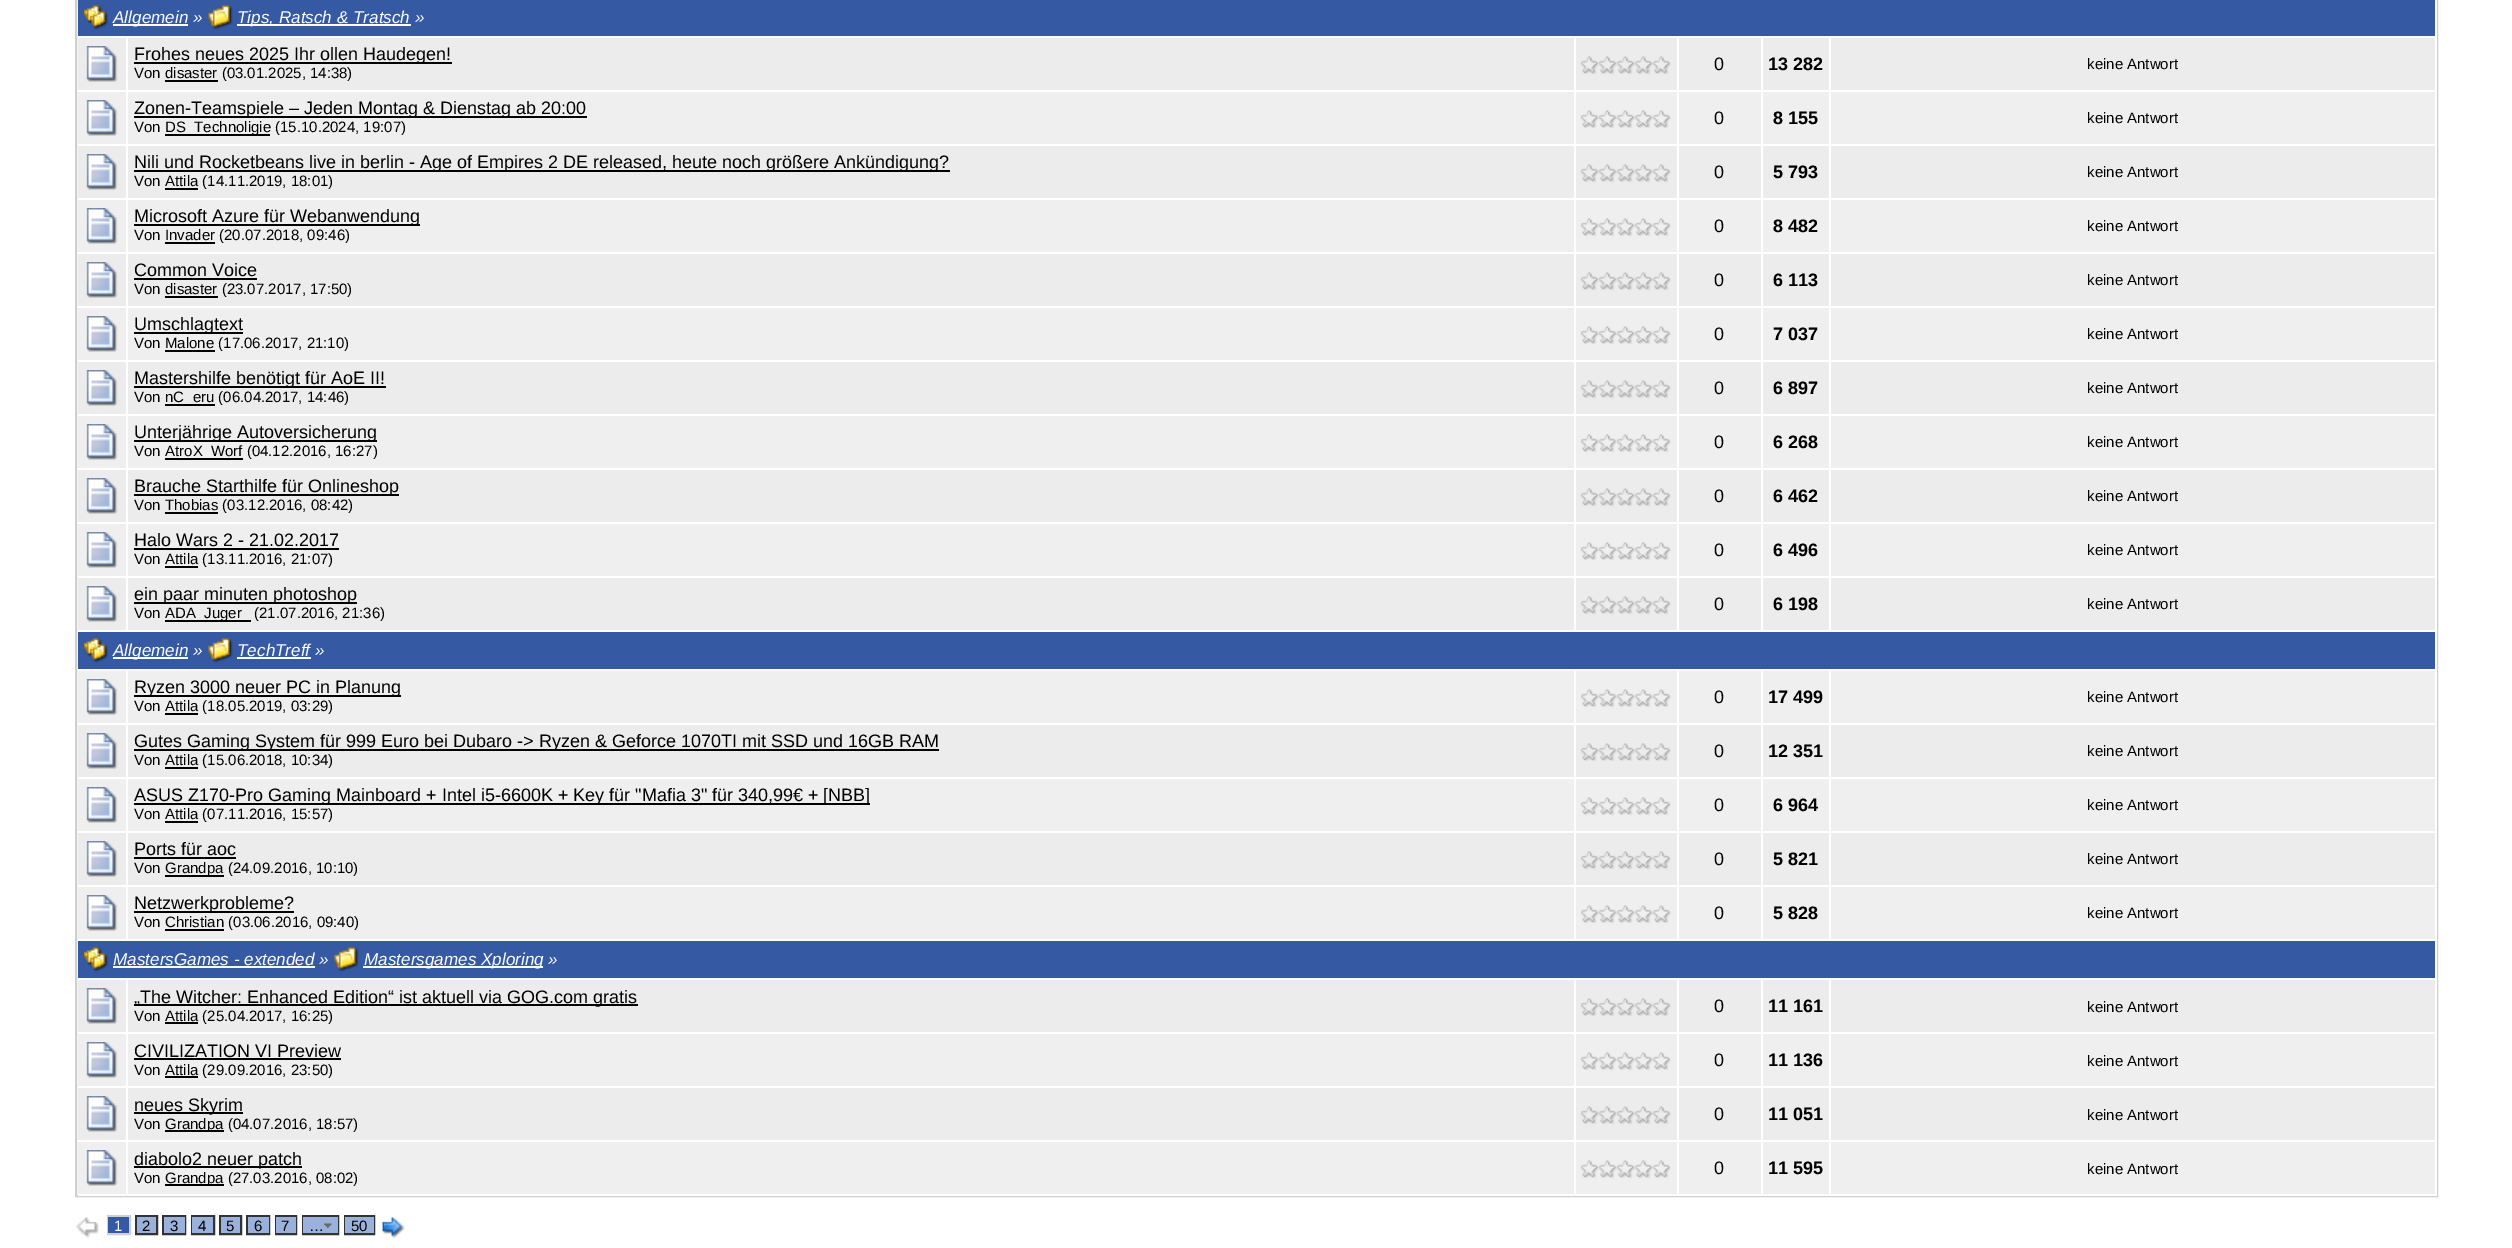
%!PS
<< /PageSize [2512 1248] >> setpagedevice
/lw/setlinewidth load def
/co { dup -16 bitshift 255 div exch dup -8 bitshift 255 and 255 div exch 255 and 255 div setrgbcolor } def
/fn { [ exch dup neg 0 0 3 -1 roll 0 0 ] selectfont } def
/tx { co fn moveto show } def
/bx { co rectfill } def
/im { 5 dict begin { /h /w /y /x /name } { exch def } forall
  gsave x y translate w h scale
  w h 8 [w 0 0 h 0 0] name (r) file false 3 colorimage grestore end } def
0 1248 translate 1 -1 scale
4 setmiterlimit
0 0 2512 1248 16#FFFFFF bx
16#CFCFCF co
2 lw
76 -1 2361 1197 rectstroke
78 0 2357 36 16#3559A3 bx
2436 0 1 1142 16#FFFFFF bx
(media/1.raw) 84 5 24 25 im
113 24 75 2 16#FFFFFF bx
(media/2.raw) 208 5 25 25 im
237 24 174 2 16#FFFFFF bx
78 38 2357 52 16#ECECEC bx
126 38 2 54 16#FFFFFF bx
(media/3.raw) 86 46 32 36 im
1574 38 2 54 16#FFFFFF bx
134 62 318 2 16#000000 bx
165 80 53 2 16#000000 bx
1677 38 2 54 16#FFFFFF bx
(media/4.raw) 1581 56 90 19 im
1761 38 2 54 16#FFFFFF bx
1829 38 2 54 16#FFFFFF bx
78 92 2357 52 16#EFEFEF bx
126 92 2 54 16#FFFFFF bx
(media/5.raw) 86 100 32 36 im
1574 92 2 54 16#FFFFFF bx
134 116 453 2 16#000000 bx
165 134 105 2 16#000000 bx
1677 92 2 54 16#FFFFFF bx
(media/6.raw) 1581 110 90 19 im
1761 92 2 54 16#FFFFFF bx
1829 92 2 54 16#FFFFFF bx
78 146 2357 52 16#ECECEC bx
126 146 2 54 16#FFFFFF bx
(media/3.raw) 86 154 32 36 im
1574 146 2 54 16#FFFFFF bx
134 170 816 2 16#000000 bx
165 188 33 2 16#000000 bx
1677 146 2 54 16#FFFFFF bx
(media/4.raw) 1581 164 90 19 im
1761 146 2 54 16#FFFFFF bx
1829 146 2 54 16#FFFFFF bx
78 200 2357 52 16#EFEFEF bx
126 200 2 54 16#FFFFFF bx
(media/5.raw) 86 208 32 36 im
1574 200 2 54 16#FFFFFF bx
134 224 286 2 16#000000 bx
165 242 50 2 16#000000 bx
1677 200 2 54 16#FFFFFF bx
(media/6.raw) 1581 218 90 19 im
1761 200 2 54 16#FFFFFF bx
1829 200 2 54 16#FFFFFF bx
78 254 2357 52 16#ECECEC bx
126 254 2 54 16#FFFFFF bx
(media/3.raw) 86 262 32 36 im
1574 254 2 54 16#FFFFFF bx
134 278 123 2 16#000000 bx
165 296 53 2 16#000000 bx
1677 254 2 54 16#FFFFFF bx
(media/4.raw) 1581 272 90 19 im
1761 254 2 54 16#FFFFFF bx
1829 254 2 54 16#FFFFFF bx
78 308 2357 52 16#EFEFEF bx
126 308 2 54 16#FFFFFF bx
(media/5.raw) 86 316 32 36 im
1574 308 2 54 16#FFFFFF bx
134 332 109 2 16#000000 bx
165 350 50 2 16#000000 bx
1677 308 2 54 16#FFFFFF bx
(media/6.raw) 1581 326 90 19 im
1761 308 2 54 16#FFFFFF bx
1829 308 2 54 16#FFFFFF bx
78 362 2357 52 16#ECECEC bx
126 362 2 54 16#FFFFFF bx
(media/3.raw) 86 370 32 36 im
1574 362 2 54 16#FFFFFF bx
134 386 252 2 16#000000 bx
165 404 50 2 16#000000 bx
1677 362 2 54 16#FFFFFF bx
(media/4.raw) 1581 380 90 19 im
1761 362 2 54 16#FFFFFF bx
1829 362 2 54 16#FFFFFF bx
78 416 2357 52 16#EFEFEF bx
126 416 2 54 16#FFFFFF bx
(media/5.raw) 86 424 32 36 im
1574 416 2 54 16#FFFFFF bx
134 440 243 2 16#000000 bx
165 458 78 2 16#000000 bx
1677 416 2 54 16#FFFFFF bx
(media/6.raw) 1581 434 90 19 im
1761 416 2 54 16#FFFFFF bx
1829 416 2 54 16#FFFFFF bx
78 470 2357 52 16#ECECEC bx
126 470 2 54 16#FFFFFF bx
(media/3.raw) 86 478 32 36 im
1574 470 2 54 16#FFFFFF bx
134 494 265 2 16#000000 bx
165 512 53 2 16#000000 bx
1677 470 2 54 16#FFFFFF bx
(media/4.raw) 1581 488 90 19 im
1761 470 2 54 16#FFFFFF bx
1829 470 2 54 16#FFFFFF bx
78 524 2357 52 16#EFEFEF bx
126 524 2 54 16#FFFFFF bx
(media/5.raw) 86 532 32 36 im
1574 524 2 54 16#FFFFFF bx
134 548 205 2 16#000000 bx
165 566 33 2 16#000000 bx
1677 524 2 54 16#FFFFFF bx
(media/6.raw) 1581 542 90 19 im
1761 524 2 54 16#FFFFFF bx
1829 524 2 54 16#FFFFFF bx
78 578 2357 52 16#ECECEC bx
126 578 2 54 16#FFFFFF bx
(media/3.raw) 86 586 32 36 im
1574 578 2 54 16#FFFFFF bx
134 602 223 2 16#000000 bx
165 620 86 2 16#000000 bx
1677 578 2 54 16#FFFFFF bx
(media/4.raw) 1581 596 90 19 im
1761 578 2 54 16#FFFFFF bx
1829 578 2 54 16#FFFFFF bx
78 632 2357 37 16#3559A3 bx
(media/1.raw) 84 638 24 25 im
113 657 75 2 16#FFFFFF bx
(media/2.raw) 208 638 25 25 im
237 657 74 2 16#FFFFFF bx
78 671 2357 52 16#EFEFEF bx
126 671 2 54 16#FFFFFF bx
(media/5.raw) 86 679 32 36 im
1574 671 2 54 16#FFFFFF bx
134 695 267 2 16#000000 bx
165 713 33 2 16#000000 bx
1677 671 2 54 16#FFFFFF bx
(media/6.raw) 1581 689 90 19 im
1761 671 2 54 16#FFFFFF bx
1829 671 2 54 16#FFFFFF bx
78 725 2357 52 16#ECECEC bx
126 725 2 54 16#FFFFFF bx
(media/3.raw) 86 733 32 36 im
1574 725 2 54 16#FFFFFF bx
134 749 805 2 16#000000 bx
165 767 33 2 16#000000 bx
1677 725 2 54 16#FFFFFF bx
(media/4.raw) 1581 743 90 19 im
1761 725 2 54 16#FFFFFF bx
1829 725 2 54 16#FFFFFF bx
78 779 2357 52 16#EFEFEF bx
126 779 2 54 16#FFFFFF bx
(media/5.raw) 86 787 32 36 im
1574 779 2 54 16#FFFFFF bx
134 803 736 2 16#000000 bx
165 821 33 2 16#000000 bx
1677 779 2 54 16#FFFFFF bx
(media/6.raw) 1581 797 90 19 im
1761 779 2 54 16#FFFFFF bx
1829 779 2 54 16#FFFFFF bx
78 833 2357 52 16#ECECEC bx
126 833 2 54 16#FFFFFF bx
(media/3.raw) 86 841 32 36 im
1574 833 2 54 16#FFFFFF bx
134 857 102 2 16#000000 bx
165 875 59 2 16#000000 bx
1677 833 2 54 16#FFFFFF bx
(media/4.raw) 1581 851 90 19 im
1761 833 2 54 16#FFFFFF bx
1829 833 2 54 16#FFFFFF bx
78 887 2357 52 16#EFEFEF bx
126 887 2 54 16#FFFFFF bx
(media/5.raw) 86 895 32 36 im
1574 887 2 54 16#FFFFFF bx
134 911 160 2 16#000000 bx
165 929 59 2 16#000000 bx
1677 887 2 54 16#FFFFFF bx
(media/6.raw) 1581 905 90 19 im
1761 887 2 54 16#FFFFFF bx
1829 887 2 54 16#FFFFFF bx
78 941 2357 37 16#3559A3 bx
(media/1.raw) 84 947 24 25 im
113 966 202 2 16#FFFFFF bx
(media/2.raw) 334 947 25 25 im
363 966 180 2 16#FFFFFF bx
78 980 2357 52 16#ECECEC bx
126 980 2 54 16#FFFFFF bx
(media/3.raw) 86 988 32 36 im
1574 980 2 54 16#FFFFFF bx
134 1004 504 2 16#000000 bx
165 1022 33 2 16#000000 bx
1677 980 2 54 16#FFFFFF bx
(media/4.raw) 1581 998 90 19 im
1761 980 2 54 16#FFFFFF bx
1829 980 2 54 16#FFFFFF bx
78 1034 2357 52 16#EFEFEF bx
126 1034 2 54 16#FFFFFF bx
(media/5.raw) 86 1042 32 36 im
1574 1034 2 54 16#FFFFFF bx
134 1058 207 2 16#000000 bx
165 1076 33 2 16#000000 bx
1677 1034 2 54 16#FFFFFF bx
(media/6.raw) 1581 1052 90 19 im
1761 1034 2 54 16#FFFFFF bx
1829 1034 2 54 16#FFFFFF bx
78 1088 2357 52 16#ECECEC bx
126 1088 2 54 16#FFFFFF bx
(media/3.raw) 86 1096 32 36 im
1574 1088 2 54 16#FFFFFF bx
134 1112 109 2 16#000000 bx
165 1130 59 2 16#000000 bx
1677 1088 2 54 16#FFFFFF bx
(media/4.raw) 1581 1106 90 19 im
1761 1088 2 54 16#FFFFFF bx
1829 1088 2 54 16#FFFFFF bx
78 1142 2357 52 16#EFEFEF bx
126 1142 2 54 16#FFFFFF bx
78 1195 50 1 16#FFFFFF bx
(media/5.raw) 86 1150 32 36 im
1574 1142 2 54 16#FFFFFF bx
128 1195 1447 1 16#FFFFFF bx
134 1166 168 2 16#000000 bx
165 1184 59 2 16#000000 bx
1677 1142 2 54 16#FFFFFF bx
1575 1195 104 1 16#FFFFFF bx
(media/6.raw) 1581 1160 90 19 im
1761 1142 2 54 16#FFFFFF bx
1679 1195 84 1 16#FFFFFF bx
1829 1142 2 54 16#FFFFFF bx
1763 1195 67 1 16#FFFFFF bx
2435 1142 2 54 16#FFFFFF bx
1830 1195 606 1 16#FFFFFF bx
(media/7.raw) 76 1217 23 22 im
16#CFCFCF co
108 1216 22 18 rectstroke
108 1217 21 16 16#3559A3 bx
16#333333 co
136 1216 21 18 rectstroke
137 1217 19 16 16#9AB1DB bx
16#333333 co
163 1216 22 18 rectstroke
164 1217 21 16 16#9AB1DB bx
16#333333 co
192 1216 22 18 rectstroke
192 1217 21 16 16#9AB1DB bx
16#333333 co
220 1216 21 18 rectstroke
221 1217 19 16 16#9AB1DB bx
16#333333 co
247 1216 22 18 rectstroke
248 1217 21 16 16#9AB1DB bx
16#333333 co
276 1216 20 18 rectstroke
276 1217 20 16 16#9AB1DB bx
16#333333 co
303 1216 35 18 rectstroke
303 1217 35 16 16#9AB1DB bx
(media/8.raw) 324 1223 8 5 im
16#333333 co
345 1216 29 18 rectstroke
345 1217 29 16 16#9AB1DB bx
(media/9.raw) 382 1217 23 22 im
(Allgemein ») 113 23 /LiberationSans-Italic 17.1 16#FFFFFF tx
(Tips, Ratsch & Tratsch ») 237 23 /LiberationSans-Italic 17.1 16#FFFFFF tx
(Frohes neues 2025 Ihr ollen Haudegen!) 134 60 /LiberationSans-Regular 18 16#000000 tx
(Von disaster \(03.01.2025, 14:38\)) 134 78 /LiberationSans-Regular 15 16#000000 tx
(0) 1714 70 /LiberationSans-Regular 18 16#000000 tx
(13 282) 1768 70 /LiberationSans-Bold 18 16#000000 tx
(keine Antwort) 2087 69 /LiberationSans-Regular 15 16#000000 tx
(Zonen-Teamspiele – Jeden Montag & Dienstag ab 20:00) 134 114 /LiberationSans-Regular 18 16#000000 tx
(Von) 134 132 /LiberationSans-Regular 15 16#000000 tx
(DS_Technoligie \(15.10.2024, 19:07\)) 165 132 /LiberationSans-Regular 15 16#000000 tx
(0) 1714 124 /LiberationSans-Regular 18 16#000000 tx
(8 155) 1773 124 /LiberationSans-Bold 18 16#000000 tx
(keine Antwort) 2087 123 /LiberationSans-Regular 15 16#000000 tx
(Nili und Rocketbeans live in berlin - Age of Empires 2 DE released, heute noch größere Ankündigung?) 134 168 /LiberationSans-Regular 18 16#000000 tx
(Von Attila \(14.11.2019, 18:01\)) 134 186 /LiberationSans-Regular 15 16#000000 tx
(0) 1714 178 /LiberationSans-Regular 18 16#000000 tx
(5 793) 1773 178 /LiberationSans-Bold 18 16#000000 tx
(keine Antwort) 2087 177 /LiberationSans-Regular 15 16#000000 tx
(Microsoft Azure für Webanwendung) 134 222 /LiberationSans-Regular 18 16#000000 tx
(Von Invader \(20.07.2018, 09:46\)) 134 240 /LiberationSans-Regular 15 16#000000 tx
(0) 1714 232 /LiberationSans-Regular 18 16#000000 tx
(8 482) 1773 232 /LiberationSans-Bold 18 16#000000 tx
(keine Antwort) 2087 231 /LiberationSans-Regular 15 16#000000 tx
(Common Voice) 134 276 /LiberationSans-Regular 18 16#000000 tx
(Von disaster \(23.07.2017, 17:50\)) 134 294 /LiberationSans-Regular 15 16#000000 tx
(0) 1714 286 /LiberationSans-Regular 18 16#000000 tx
(6 113) 1773 286 /LiberationSans-Bold 18 16#000000 tx
(keine Antwort) 2087 285 /LiberationSans-Regular 15 16#000000 tx
(Umschlagtext) 134 330 /LiberationSans-Regular 18 16#000000 tx
(Von Malone \(17.06.2017, 21:10\)) 134 348 /LiberationSans-Regular 15 16#000000 tx
(0) 1714 340 /LiberationSans-Regular 18 16#000000 tx
(7 037) 1773 340 /LiberationSans-Bold 18 16#000000 tx
(keine Antwort) 2087 339 /LiberationSans-Regular 15 16#000000 tx
(Mastershilfe benötigt für AoE II!) 134 384 /LiberationSans-Regular 18 16#000000 tx
(Von) 134 402 /LiberationSans-Regular 15 16#000000 tx
(nC_eru \(06.04.2017, 14:46\)) 165 402 /LiberationSans-Regular 15 16#000000 tx
(0) 1714 394 /LiberationSans-Regular 18 16#000000 tx
(6 897) 1773 394 /LiberationSans-Bold 18 16#000000 tx
(keine Antwort) 2087 393 /LiberationSans-Regular 15 16#000000 tx
(Unterjährige Autoversicherung) 134 438 /LiberationSans-Regular 18 16#000000 tx
(Von) 134 456 /LiberationSans-Regular 15 16#000000 tx
(AtroX_Worf \(04.12.2016, 16:27\)) 165 456 /LiberationSans-Regular 15 16#000000 tx
(0) 1714 448 /LiberationSans-Regular 18 16#000000 tx
(6 268) 1773 448 /LiberationSans-Bold 18 16#000000 tx
(keine Antwort) 2087 447 /LiberationSans-Regular 15 16#000000 tx
(Brauche Starthilfe für Onlineshop) 134 492 /LiberationSans-Regular 18 16#000000 tx
(Von Thobias \(03.12.2016, 08:42\)) 134 510 /LiberationSans-Regular 15 16#000000 tx
(0) 1714 502 /LiberationSans-Regular 18 16#000000 tx
(6 462) 1773 502 /LiberationSans-Bold 18 16#000000 tx
(keine Antwort) 2087 501 /LiberationSans-Regular 15 16#000000 tx
(Halo Wars 2 - 21.02.2017) 134 546 /LiberationSans-Regular 18 16#000000 tx
(Von Attila \(13.11.2016, 21:07\)) 134 564 /LiberationSans-Regular 15 16#000000 tx
(0) 1714 556 /LiberationSans-Regular 18 16#000000 tx
(6 496) 1773 556 /LiberationSans-Bold 18 16#000000 tx
(keine Antwort) 2087 555 /LiberationSans-Regular 15 16#000000 tx
(ein paar minuten photoshop) 134 600 /LiberationSans-Regular 18 16#000000 tx
(Von) 134 618 /LiberationSans-Regular 15 16#000000 tx
(ADA_Juger) 165 618 /LiberationSans-Regular 15 16#000000 tx
(\(21.07.2016, 21:36\)) 254 618 /LiberationSans-Regular 15 16#000000 tx
(0) 1714 610 /LiberationSans-Regular 18 16#000000 tx
(6 198) 1773 610 /LiberationSans-Bold 18 16#000000 tx
(keine Antwort) 2087 609 /LiberationSans-Regular 15 16#000000 tx
(Allgemein ») 113 656 /LiberationSans-Italic 17.1 16#FFFFFF tx
(TechTreff ») 237 656 /LiberationSans-Italic 17.1 16#FFFFFF tx
(Ryzen 3000 neuer PC in Planung) 134 693 /LiberationSans-Regular 18 16#000000 tx
(Von Attila \(18.05.2019, 03:29\)) 134 711 /LiberationSans-Regular 15 16#000000 tx
(0) 1714 703 /LiberationSans-Regular 18 16#000000 tx
(17 499) 1768 703 /LiberationSans-Bold 18 16#000000 tx
(keine Antwort) 2087 702 /LiberationSans-Regular 15 16#000000 tx
(Gutes Gaming System für 999 Euro bei Dubaro -> Ryzen & Geforce 1070TI mit SSD und 16GB RAM) 134 747 /LiberationSans-Regular 18 16#000000 tx
(Von Attila \(15.06.2018, 10:34\)) 134 765 /LiberationSans-Regular 15 16#000000 tx
(0) 1714 757 /LiberationSans-Regular 18 16#000000 tx
(12 351) 1768 757 /LiberationSans-Bold 18 16#000000 tx
(keine Antwort) 2087 756 /LiberationSans-Regular 15 16#000000 tx
(ASUS Z170-Pro Gaming Mainboard + Intel i5-6600K + Key für "Mafia 3" für 340,99€ + [NBB]) 134 801 /LiberationSans-Regular 18 16#000000 tx
(Von Attila \(07.11.2016, 15:57\)) 134 819 /LiberationSans-Regular 15 16#000000 tx
(0) 1714 811 /LiberationSans-Regular 18 16#000000 tx
(6 964) 1773 811 /LiberationSans-Bold 18 16#000000 tx
(keine Antwort) 2087 810 /LiberationSans-Regular 15 16#000000 tx
(Ports für aoc) 134 855 /LiberationSans-Regular 18 16#000000 tx
(Von) 134 873 /LiberationSans-Regular 15 16#000000 tx
(Grandpa \(24.09.2016, 10:10\)) 165 873 /LiberationSans-Regular 15 16#000000 tx
(0) 1714 865 /LiberationSans-Regular 18 16#000000 tx
(5 821) 1773 865 /LiberationSans-Bold 18 16#000000 tx
(keine Antwort) 2087 864 /LiberationSans-Regular 15 16#000000 tx
(Netzwerkprobleme?) 134 909 /LiberationSans-Regular 18 16#000000 tx
(Von Christian \(03.06.2016, 09:40\)) 134 927 /LiberationSans-Regular 15 16#000000 tx
(0) 1714 919 /LiberationSans-Regular 18 16#000000 tx
(5 828) 1773 919 /LiberationSans-Bold 18 16#000000 tx
(keine Antwort) 2087 918 /LiberationSans-Regular 15 16#000000 tx
(MastersGames - extended ») 113 965 /LiberationSans-Italic 17.1 16#FFFFFF tx
(Mastersgames Xploring ») 364 965 /LiberationSans-Italic 17.1 16#FFFFFF tx
(„The Witcher: Enhanced Edition“ ist aktuell via GOG.com gratis) 134 1003 /LiberationSans-Regular 18 16#000000 tx
(Von Attila \(25.04.2017, 16:25\)) 134 1021 /LiberationSans-Regular 15 16#000000 tx
(0) 1714 1012 /LiberationSans-Regular 18 16#000000 tx
(11 161) 1768 1012 /LiberationSans-Bold 18 16#000000 tx
(keine Antwort) 2087 1012 /LiberationSans-Regular 15 16#000000 tx
(CIVILIZATION VI Preview) 134 1057 /LiberationSans-Regular 18 16#000000 tx
(Von Attila \(29.09.2016, 23:50\)) 134 1075 /LiberationSans-Regular 15 16#000000 tx
(0) 1714 1066 /LiberationSans-Regular 18 16#000000 tx
(11 136) 1768 1066 /LiberationSans-Bold 18 16#000000 tx
(keine Antwort) 2087 1066 /LiberationSans-Regular 15 16#000000 tx
(neues Skyrim) 134 1111 /LiberationSans-Regular 18 16#000000 tx
(Von) 134 1129 /LiberationSans-Regular 15 16#000000 tx
(Grandpa \(04.07.2016, 18:57\)) 165 1129 /LiberationSans-Regular 15 16#000000 tx
(0) 1714 1120 /LiberationSans-Regular 18 16#000000 tx
(11 051) 1768 1120 /LiberationSans-Bold 18 16#000000 tx
(keine Antwort) 2087 1120 /LiberationSans-Regular 15 16#000000 tx
(diabolo2 neuer patch) 134 1165 /LiberationSans-Regular 18 16#000000 tx
(Von) 134 1183 /LiberationSans-Regular 15 16#000000 tx
(Grandpa \(27.03.2016, 08:02\)) 165 1183 /LiberationSans-Regular 15 16#000000 tx
(0) 1714 1174 /LiberationSans-Regular 18 16#000000 tx
(11 595) 1768 1174 /LiberationSans-Bold 18 16#000000 tx
(keine Antwort) 2087 1174 /LiberationSans-Regular 15 16#000000 tx
(1) 114 1231 /LiberationSans-Regular 15 16#FFFFFF tx
(2) 142 1231 /LiberationSans-Regular 15 16#000000 tx
(3) 170 1231 /LiberationSans-Regular 15 16#000000 tx
(4) 198 1231 /LiberationSans-Regular 15 16#000000 tx
(5) 226 1231 /LiberationSans-Regular 15 16#000000 tx
(6) 254 1231 /LiberationSans-Regular 15 16#000000 tx
(7) 281 1231 /LiberationSans-Regular 15 16#000000 tx
(…) 309 1231 /LiberationSans-Regular 15 16#000000 tx
(50) 351 1231 /LiberationSans-Regular 15 16#000000 tx
showpage
